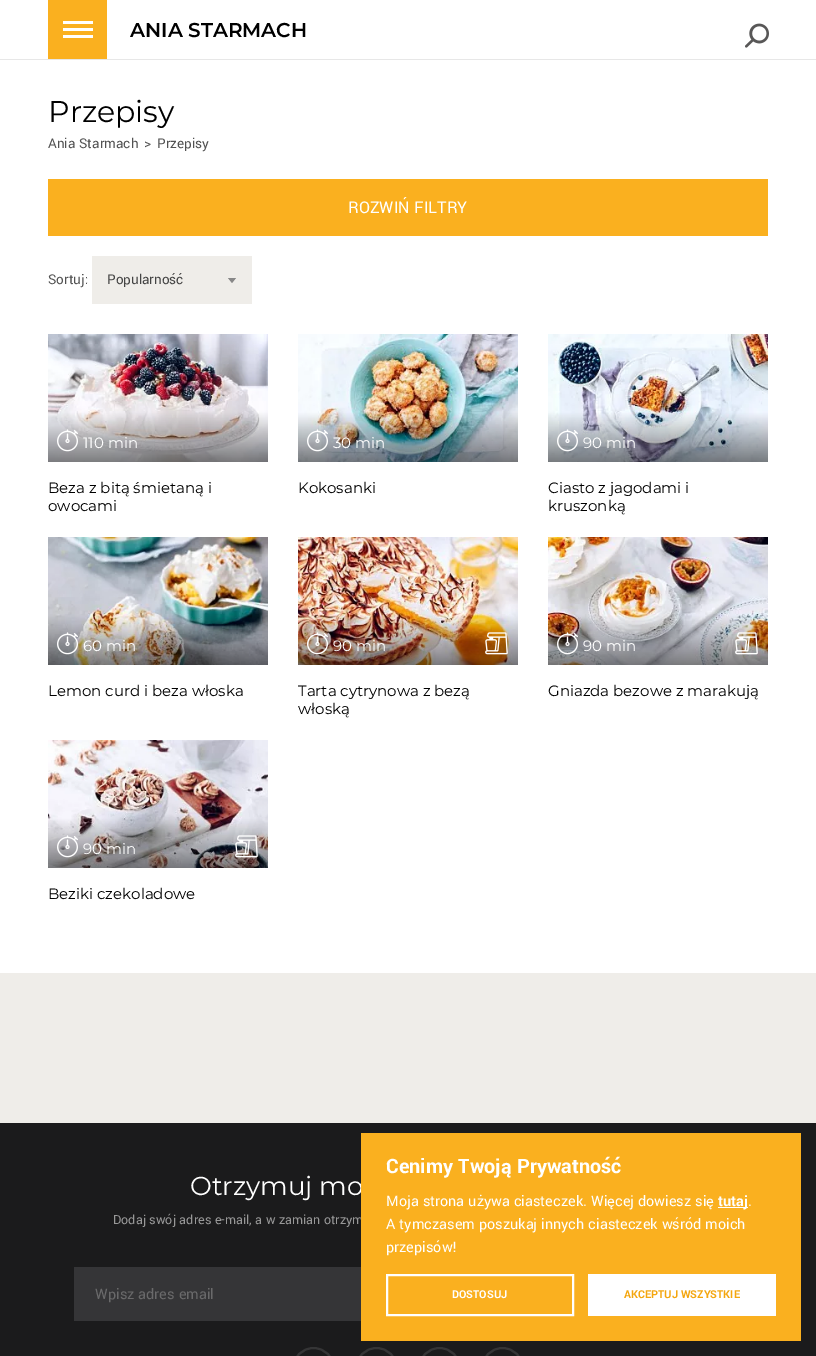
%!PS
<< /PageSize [816 1356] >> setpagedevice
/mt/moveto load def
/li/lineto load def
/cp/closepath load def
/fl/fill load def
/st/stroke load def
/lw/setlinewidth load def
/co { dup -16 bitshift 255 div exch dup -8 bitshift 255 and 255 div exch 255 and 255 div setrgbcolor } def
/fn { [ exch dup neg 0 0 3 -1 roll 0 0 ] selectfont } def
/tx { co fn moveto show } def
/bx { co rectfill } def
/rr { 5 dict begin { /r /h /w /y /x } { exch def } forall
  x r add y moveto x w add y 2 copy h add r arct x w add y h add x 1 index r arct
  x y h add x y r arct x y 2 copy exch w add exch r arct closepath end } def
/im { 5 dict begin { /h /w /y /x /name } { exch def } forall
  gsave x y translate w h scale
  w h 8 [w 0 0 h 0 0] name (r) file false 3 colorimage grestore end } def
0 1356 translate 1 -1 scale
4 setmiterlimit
0 0 816 1356 16#FFFFFF bx
0 59 816 1 16#E7E7E7 bx
48 0 59 59 16#FAB01F bx
63 28 30 3 16#FFFFFF bx
63 21 30 3 16#FFFFFF bx
63 35 30 3 16#FFFFFF bx
(media/1.raw) 745 23 24 25 im
48 179 720 57 16#FAB01F bx
92 256 160 48 16#EFEDE9 bx
16#888888 co
228 278 mt 236 278 li 232 283 li cp fl
(media/2.raw) 48 334 220 128 im
(media/3.raw) 57 429 21 23 im
(media/4.raw) 298 334 220 128 im
(media/5.raw) 307 429 21 23 im
(media/6.raw) 548 334 220 128 im
(media/7.raw) 557 429 21 23 im
(media/8.raw) 48 537 220 128 im
(media/9.raw) 57 632 21 23 im
(media/10.raw) 298 537 220 128 im
(media/11.raw) 307 632 21 23 im
(media/12.raw) 485 632 23 23 im
(media/13.raw) 548 537 220 128 im
(media/14.raw) 557 632 21 23 im
(media/15.raw) 735 632 23 23 im
(media/16.raw) 48 740 220 128 im
(media/17.raw) 57 835 21 23 im
(media/18.raw) 235 835 23 23 im
0 1123 816 233 16#1B1B1C bx
0 973 816 150 16#EFEDE9 bx
74 1267 287 54 16#353537 bx
16#353536 co
2 lw
293 1348 41 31 20.5 rr st
356 1348 41 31 20.5 rr st
419 1348 41 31 20.5 rr st
482 1348 41 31 20.5 rr st
(ANIA STARMACH) 130 37 /Montserrat-SemiBold 20 16#000000 tx
(Przepisy) 48 122 /Montserrat-Regular 30 16#000000 tx
(Ania Starmach) 48 148 /Yantramanav-Regular 15 16#525252 tx
(>) 144 148 /Yantramanav-Regular 15 16#525252 tx
(Przepisy) 157 148 /Yantramanav-Regular 15 16#525252 tx
(ROZWIŃ FILTRY) 348 213 /Yantramanav-Regular 18 16#FFFFFF tx
(Sortuj:) 48 284 /Yantramanav-Regular 15 16#525252 tx
(Popularność) 107 284 /Yantramanav-Regular 15 16#444444 tx
(110 min) 83 448 /Montserrat-Regular 15 16#FFFFFF tx
(Beza z bitą śmietaną i) 48 493 /Montserrat-Regular 15 16#000000 tx
(owocami) 48 511 /Montserrat-Regular 15 16#000000 tx
(30 min) 333 448 /Montserrat-Regular 15 16#FFFFFF tx
(Kokosanki) 298 493 /Montserrat-Regular 15 16#000000 tx
(90 min) 583 448 /Montserrat-Regular 15 16#FFFFFF tx
(Ciasto z jagodami i) 548 493 /Montserrat-Regular 15 16#000000 tx
(kruszonką) 548 511 /Montserrat-Regular 15 16#000000 tx
(60 min) 83 651 /Montserrat-Regular 15 16#FFFFFF tx
(Lemon curd i beza włoska) 48 696 /Montserrat-Regular 15 16#000000 tx
(90 min) 333 651 /Montserrat-Regular 15 16#FFFFFF tx
(Tarta cytrynowa z bezą) 298 696 /Montserrat-Regular 15 16#000000 tx
(włoską) 298 714 /Montserrat-Regular 15 16#000000 tx
(90 min) 583 651 /Montserrat-Regular 15 16#FFFFFF tx
(Gniazda bezowe z marakują) 548 696 /Montserrat-Regular 15 16#000000 tx
(90 min) 83 854 /Montserrat-Regular 15 16#FFFFFF tx
(Beziki czekoladowe) 48 899 /Montserrat-Regular 15 16#000000 tx
(Otrzymuj mo) 190 1195 /Montserrat-Regular 26 16#FFFFFF tx
(Dodaj swój adres e-mail, a w zamian otrzym) 113 1224 /Yantramanav-Regular 14 16#989898 tx
(Wpisz adres email) 95 1299 /Yantramanav-Regular 16 16#6A6A6B tx
361 1133 440 208 16#FAB01F bx
(Cenimy Twoją Prywatność) 386 1173 /Yantramanav-Bold 22 16#FFFFFF tx
(Moja strona używa ciasteczek. Więcej dowiesz się) 386 1206 /Yantramanav-Regular 16 16#FFFFFF tx
718 1207 30 1 16#FFFFFF bx
(tutaj) 718 1206 /Yantramanav-Bold 16 16#FFFFFF tx
(.) 748 1206 /Yantramanav-Regular 16 16#FFFFFF tx
(A tymczasem poszukaj innych ciasteczek wśród moich) 386 1229 /Yantramanav-Regular 16 16#FFFFFF tx
(przepisów!) 386 1252 /Yantramanav-Regular 16 16#FFFFFF tx
387 1275 186 40 rectstroke
(DOSTOSUJ) 452 1298 /Yantramanav-Bold 12 16#FFFFFF tx
588 1274 188 42 16#FFFFFF bx
(AKCEPTUJ WSZYSTKIE) 624 1298 /Yantramanav-Bold 12 16#F4A60E tx
showpage
